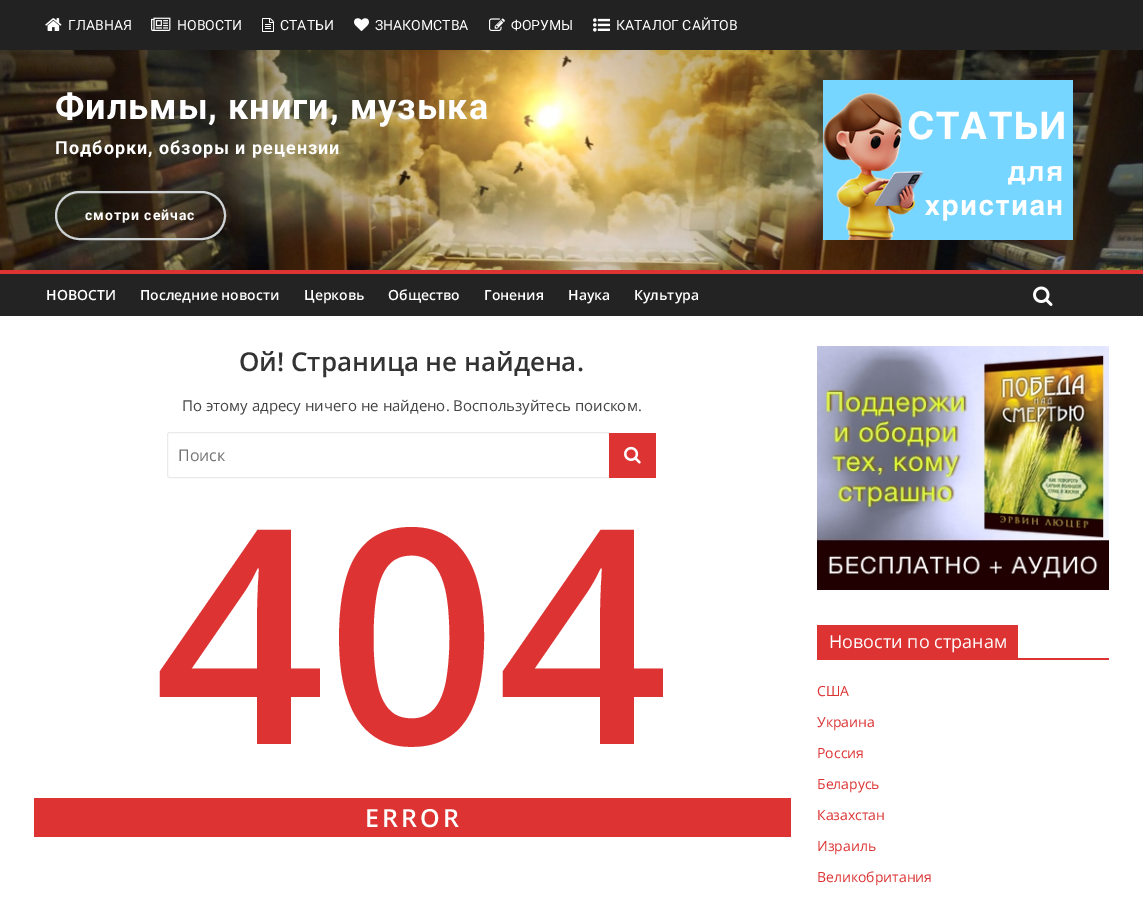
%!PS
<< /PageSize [1143 905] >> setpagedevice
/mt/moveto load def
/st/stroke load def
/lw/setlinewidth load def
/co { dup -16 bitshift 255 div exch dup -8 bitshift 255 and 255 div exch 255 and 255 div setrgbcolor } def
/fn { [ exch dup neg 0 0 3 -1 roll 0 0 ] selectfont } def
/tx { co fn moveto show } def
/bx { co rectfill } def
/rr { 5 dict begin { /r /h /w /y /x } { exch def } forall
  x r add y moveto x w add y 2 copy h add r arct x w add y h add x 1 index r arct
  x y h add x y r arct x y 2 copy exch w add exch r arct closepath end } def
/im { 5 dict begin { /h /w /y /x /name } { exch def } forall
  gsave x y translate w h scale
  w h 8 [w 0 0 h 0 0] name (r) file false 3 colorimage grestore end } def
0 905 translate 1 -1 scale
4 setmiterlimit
0 0 1143 905 16#FFFFFF bx
0 0 1143 50 16#222222 bx
(media/1.raw) 45 18 17 13 im
(media/2.raw) 151 17 20 14 im
(media/3.raw) 262 18 12 14 im
(media/4.raw) 354 18 15 13 im
(media/5.raw) 489 18 16 13 im
(media/6.raw) 593 18 17 14 im
(media/9.raw) 1142 50 1 220 im
(media/7.raw) 0 50 1143 220 im
16#CED3D5 co
2 lw
56 192 169 47 23.5 rr st
(media/8.raw) 823 80 250 160 im
0 274 1143 42 16#232323 bx
0 270 1143 4 16#DD3333 bx
(media/10.raw) 1033 286 20 20 im
16#EAEAEA co
1 lw
167.5 432.5 442 45 2.5 rr st
609 433 47 45 16#DD3333 bx
(media/11.raw) 624 446 17 18 im
34 798 757 39 16#DD3333 bx
(media/12.raw) 817 346 292 244 im
817 658 292 2 16#DD3333 bx
817 625 201 33 16#DD3333 bx
(ГЛАВНАЯ) 68 30 /Roboto-Regular 14 16#FFFFFF tx
(НОВОСТИ) 177 30 /Roboto-Regular 14 16#FFFFFF tx
(СТАТЬИ) 280 30 /Roboto-Regular 14 16#FFFFFF tx
(ЗНАКОМСТВА) 375 30 /Roboto-Regular 14 16#FFFFFF tx
(ФОРУМЫ) 511 30 /Roboto-Regular 14 16#FFFFFF tx
(КАТАЛОГ САЙТОВ) 616 30 /Roboto-Regular 14 16#FFFFFF tx
/Roboto-Bold 36 fn
55 119 mt 1 0 (Фильмы, книги, музыка) ashow
/Roboto-Bold 18 fn
55 154 mt 1 0 (Подборки, обзоры и рецензии) ashow
/Roboto-Bold 14 fn
85 220 mt 1 0 (смотри сейчас) ashow
(НОВОСТИ) 46 300 /OpenSans-SemiBold 14 16#FFFFFF tx
(Последние новости) 140 300 /OpenSans-SemiBold 14 16#FFFFFF tx
(Церковь) 304 300 /OpenSans-SemiBold 14 16#FFFFFF tx
(Общество) 388 300 /OpenSans-SemiBold 14 16#FFFFFF tx
(Гонения) 484 300 /OpenSans-SemiBold 14 16#FFFFFF tx
(Наука) 568 300 /OpenSans-SemiBold 14 16#FFFFFF tx
(Культура) 634 300 /OpenSans-SemiBold 14 16#FFFFFF tx
(Ой! Страница не найдена.) 239 371 /OpenSans-SemiBold 26 16#333333 tx
(По этому адресу ничего не найдено. Воспользуйтесь поиском.) 182 411 /OpenSans-Regular 15 16#444444 tx
(Поиск) 178 461 /OpenSans-Regular 16 16#757575 tx
(404) 154 744 /OpenSans-SemiBold 300 16#DD3333 tx
/OpenSans-SemiBold 25 fn
16#FFFFFF co
365 827 mt 3 0 (ERROR) ashow
(Новости по странам) 829 648 /OpenSans-Regular 18 16#FFFFFF tx
(США) 817 696 /OpenSans-Regular 14 16#DD3333 tx
(Украина) 817 727 /OpenSans-Regular 14 16#DD3333 tx
(Россия) 817 758 /OpenSans-Regular 14 16#DD3333 tx
(Беларусь) 817 789 /OpenSans-Regular 14 16#DD3333 tx
(Казахстан) 817 820 /OpenSans-Regular 14 16#DD3333 tx
(Израиль) 817 851 /OpenSans-Regular 14 16#DD3333 tx
(Великобритания) 817 882 /OpenSans-Regular 14 16#DD3333 tx
showpage
